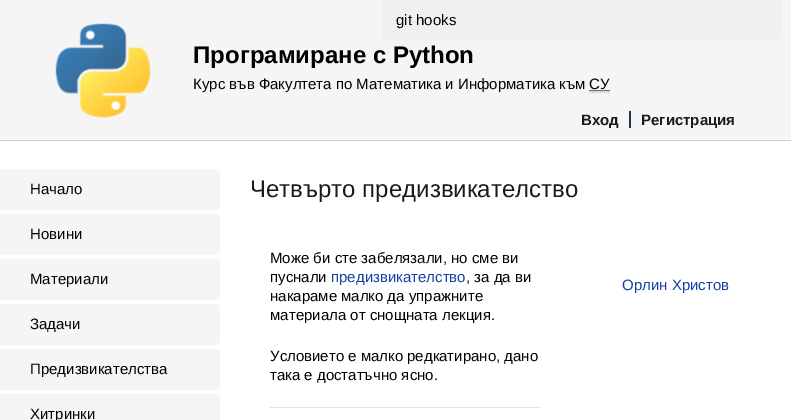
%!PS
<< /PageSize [791 420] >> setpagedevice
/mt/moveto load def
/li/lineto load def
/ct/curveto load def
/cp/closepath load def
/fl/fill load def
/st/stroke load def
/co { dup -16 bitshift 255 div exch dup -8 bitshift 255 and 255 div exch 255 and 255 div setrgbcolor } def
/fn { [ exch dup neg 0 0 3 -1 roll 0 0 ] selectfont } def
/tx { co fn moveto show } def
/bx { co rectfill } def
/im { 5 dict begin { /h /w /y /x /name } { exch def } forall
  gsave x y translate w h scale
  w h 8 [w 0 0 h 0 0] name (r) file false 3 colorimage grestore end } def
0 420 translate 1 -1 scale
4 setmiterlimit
0 0 791 420 16#FFFFFF bx
0 140 791 1 16#C4CCCC bx
0 0 791 139 16#F5F5F5 bx
16#F0F0F0 co
381 0 mt 781 0 li 781 35 li 781 38.5 778.5 41 775 41 ct 387 41 li 383.5 41 381 38.5 381 35 ct cp fl
(media/1.raw) 55 23 96 95 im
16#000000 co
[1 1] 0 setdash
589.5 90.5 mt 610 90.5 li st
629 111 2 17 16#223344 bx
16#F5F5F5 co
0 169 mt 216 169 li 218 169 220 171 220 173 ct 220 206 li 220 208 218 210 216 210 ct 0 210 li cp fl
0 214 mt 216 214 li 218 214 220 216 220 218 ct 220 251 li 220 253 218 255 216 255 ct 0 255 li cp fl
0 259 mt 216 259 li 218 259 220 261 220 263 ct 220 296 li 220 298 218 300 216 300 ct 0 300 li cp fl
0 304 mt 216 304 li 218 304 220 306 220 308 ct 220 341 li 220 343 218 345 216 345 ct 0 345 li cp fl
0 349 mt 216 349 li 218 349 220 351 220 353 ct 220 386 li 220 388 218 390 216 390 ct 0 390 li cp fl
0 394 mt 216 394 li 218 394 220 396 220 398 ct 220 420 li 220 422 218 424 216 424 ct 0 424 li cp fl
270 407 271 1 16#DFE4E4 bx
(git hooks) 396 25 /LiberationSans-Regular 15 16#000000 tx
(Програмиране с Python) 193 63 /LiberationSans-Bold 24 16#000000 tx
(Курс във Факултета по Математика и Информатика към СУ) 193 89 /LiberationSans-Regular 15 16#000000 tx
16#C4CCCC co
590 92.5 mt 610 92.5 li st
(Вход) 581 125 /LiberationSans-Bold 15 16#1A1A1A tx
(Регистрация) 641 125 /LiberationSans-Bold 15 16#1A1A1A tx
(Начало) 30 194 /LiberationSans-Regular 15 16#000000 tx
(Новини) 30 239 /LiberationSans-Regular 15 16#000000 tx
(Материали) 30 284 /LiberationSans-Regular 15 16#000000 tx
(Задачи) 30 329 /LiberationSans-Regular 15 16#000000 tx
(Предизвикателства) 30 374 /LiberationSans-Regular 15 16#000000 tx
(Хитринки) 30 419 /LiberationSans-Regular 15 16#000000 tx
(Четвърто предизвикателство) 250 197 /LiberationSans-Regular 24 16#1A1A1A tx
(Може би сте забелязали, но сме ви) 270 263 /LiberationSans-Regular 15 16#000000 tx
(пуснали) 270 282 /LiberationSans-Regular 15 16#000000 tx
(предизвикателство) 331 282 /LiberationSans-Regular 15 16#1341A3 tx
(, за да ви) 466 282 /LiberationSans-Regular 15 16#000000 tx
(накараме малко да упражните) 270 301 /LiberationSans-Regular 15 16#000000 tx
(материала от снощната лекция.) 270 320 /LiberationSans-Regular 15 16#000000 tx
(Условието е малко редкатирано, дано) 270 361 /LiberationSans-Regular 15 16#000000 tx
(така е достатъчно ясно.) 270 380 /LiberationSans-Regular 15 16#000000 tx
(Орлин Христов) 622 290 /LiberationSans-Regular 15 16#1341A3 tx
showpage
